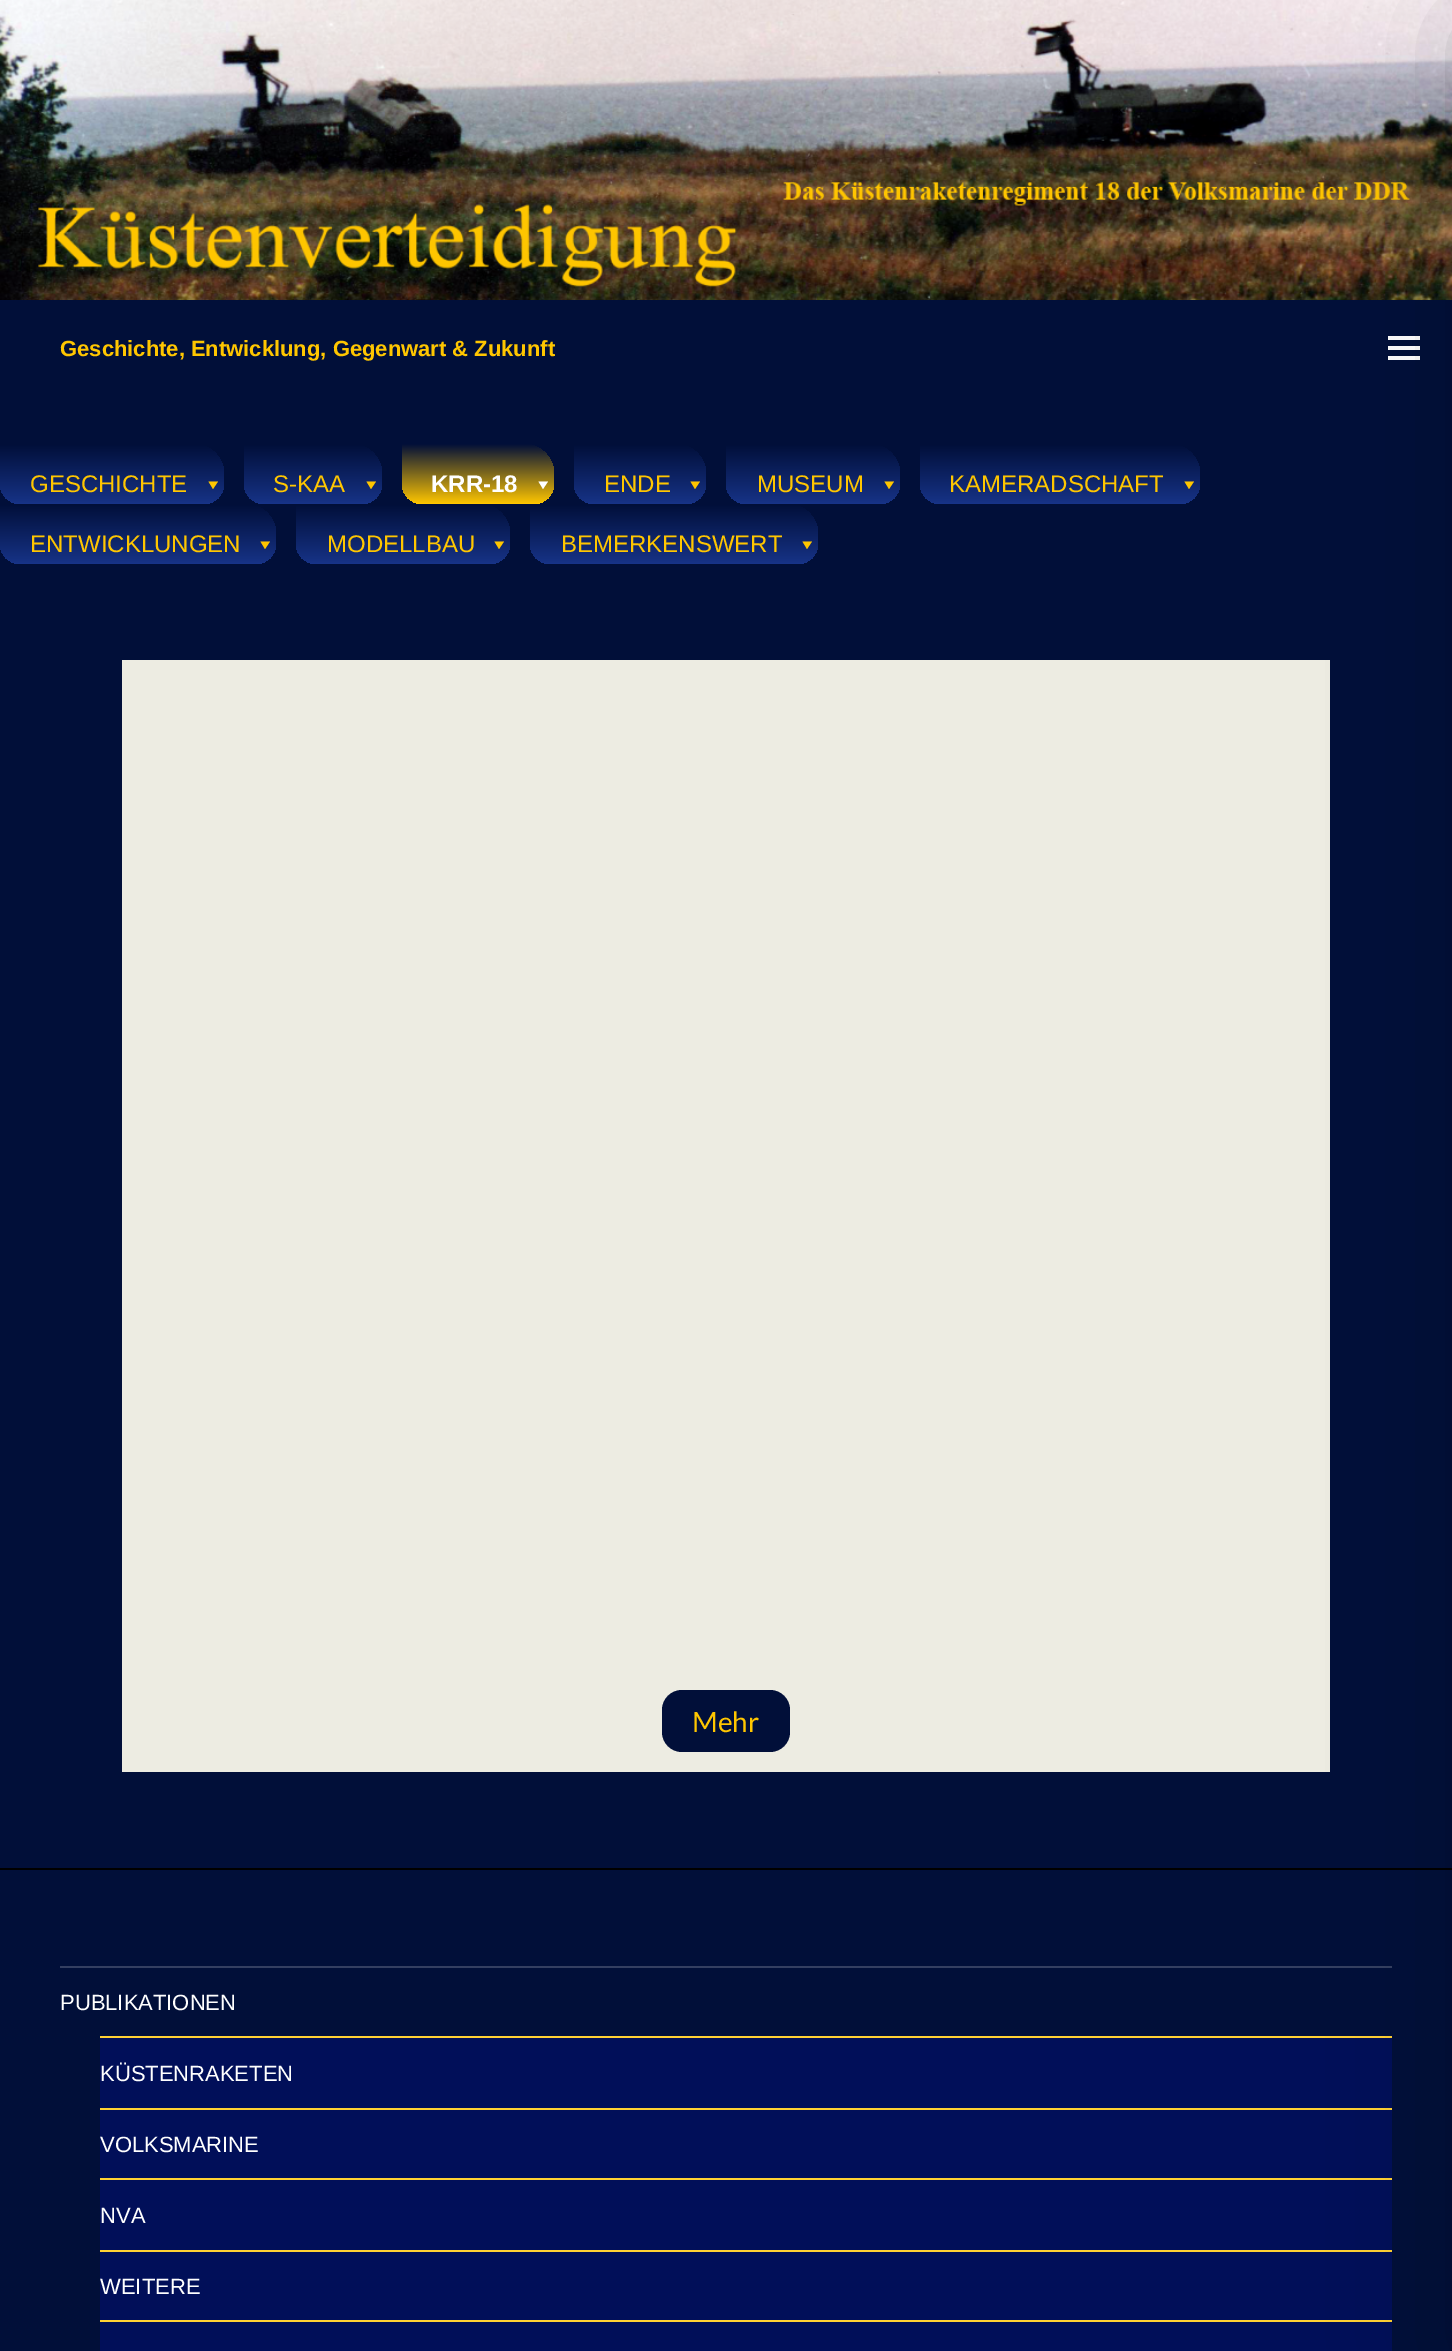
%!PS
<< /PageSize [1452 2351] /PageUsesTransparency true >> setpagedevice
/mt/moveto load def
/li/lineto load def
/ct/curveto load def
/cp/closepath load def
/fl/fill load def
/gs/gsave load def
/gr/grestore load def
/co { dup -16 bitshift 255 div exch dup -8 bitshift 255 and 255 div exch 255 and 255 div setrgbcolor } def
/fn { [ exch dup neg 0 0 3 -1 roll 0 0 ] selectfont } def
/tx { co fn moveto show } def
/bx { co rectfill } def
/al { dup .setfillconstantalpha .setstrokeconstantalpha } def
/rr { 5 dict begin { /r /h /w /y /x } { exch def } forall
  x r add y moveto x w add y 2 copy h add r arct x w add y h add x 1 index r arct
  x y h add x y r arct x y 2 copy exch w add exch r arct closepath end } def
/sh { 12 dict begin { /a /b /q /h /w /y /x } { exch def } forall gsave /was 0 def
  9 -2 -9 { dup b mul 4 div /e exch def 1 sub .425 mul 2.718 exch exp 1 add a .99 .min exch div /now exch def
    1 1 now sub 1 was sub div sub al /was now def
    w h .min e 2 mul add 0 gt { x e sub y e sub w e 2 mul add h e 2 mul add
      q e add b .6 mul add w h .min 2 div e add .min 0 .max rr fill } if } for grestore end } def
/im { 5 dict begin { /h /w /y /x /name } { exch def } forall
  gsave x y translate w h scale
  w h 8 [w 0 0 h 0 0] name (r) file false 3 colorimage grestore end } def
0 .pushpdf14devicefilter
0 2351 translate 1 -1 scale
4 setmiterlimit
0 0 1452 2351 16#010F39 bx
(media/1.raw) 0 0 1452 300 im
(media/2.raw) 1388 336 32 24 im
gs 0 444 mt 194 444 li 210.5 444 224 457.5 224 474 ct 224 484 li 224 495 215 504 204 504 ct 20 504 li 9 504 0 495 0 484 ct cp clip newpath
<< /ShadingType 2 /ColorSpace /DeviceRGB /Coords [112 444 112 504] /Extend [true true] /Function << /FunctionType 2 /Domain [0 1] /C0 [.004 .059 .224] /C1 [.09 .2 .529] /N 1 >> >> shfill gr
16#FFC600 co
218 481.5 mt 213 489 li 208.5 481.5 li cp fl
gs 244 444 mt 352 444 li 368.5 444 382 457.5 382 474 ct 382 484 li 382 495 373 504 362 504 ct 264 504 li 253 504 244 495 244 484 ct cp clip newpath
<< /ShadingType 2 /ColorSpace /DeviceRGB /Coords [313 444 313 504] /Extend [true true] /Function << /FunctionType 2 /Domain [0 1] /C0 [.004 .059 .224] /C1 [.09 .2 .529] /N 1 >> >> shfill gr
376 481.5 mt 371 489 li 366.5 481.5 li cp fl
gs 402 444 mt 524 444 li 540.5 444 554 457.5 554 474 ct 554 484 li 554 495 545 504 534 504 ct 422 504 li 411 504 402 495 402 484 ct cp clip newpath
<< /ShadingType 2 /ColorSpace /DeviceRGB /Coords [478 444 478 504] /Extend [true true] /Function << /FunctionType 2 /Domain [0 1] /C0 [.004 .059 .224] /C1 [1 .776 0] /N 1 >> >> shfill gr
16#FFFFFF co
548 481.5 mt 543 489 li 538.5 481.5 li cp fl
gs 574 444 mt 676 444 li 692.5 444 706 457.5 706 474 ct 706 484 li 706 495 697 504 686 504 ct 594 504 li 583 504 574 495 574 484 ct cp clip newpath
<< /ShadingType 2 /ColorSpace /DeviceRGB /Coords [640 444 640 504] /Extend [true true] /Function << /FunctionType 2 /Domain [0 1] /C0 [.004 .059 .224] /C1 [.09 .2 .529] /N 1 >> >> shfill gr
16#FFC600 co
700 481.5 mt 695 489 li 690.5 481.5 li cp fl
gs 726 444 mt 870 444 li 886.5 444 900 457.5 900 474 ct 900 484 li 900 495 891 504 880 504 ct 746 504 li 735 504 726 495 726 484 ct cp clip newpath
<< /ShadingType 2 /ColorSpace /DeviceRGB /Coords [813 444 813 504] /Extend [true true] /Function << /FunctionType 2 /Domain [0 1] /C0 [.004 .059 .224] /C1 [.09 .2 .529] /N 1 >> >> shfill gr
894 481.5 mt 889 489 li 884.5 481.5 li cp fl
gs 920 444 mt 1170 444 li 1186.5 444 1200 457.5 1200 474 ct 1200 484 li 1200 495 1191 504 1180 504 ct 940 504 li 929 504 920 495 920 484 ct cp clip newpath
<< /ShadingType 2 /ColorSpace /DeviceRGB /Coords [1060 444 1060 504] /Extend [true true] /Function << /FunctionType 2 /Domain [0 1] /C0 [.004 .059 .224] /C1 [.09 .2 .529] /N 1 >> >> shfill gr
1194 481.5 mt 1189 489 li 1184.5 481.5 li cp fl
gs 0 504 mt 246 504 li 262.5 504 276 517.5 276 534 ct 276 544 li 276 555 267 564 256 564 ct 20 564 li 9 564 0 555 0 544 ct cp clip newpath
<< /ShadingType 2 /ColorSpace /DeviceRGB /Coords [138 504 138 564] /Extend [true true] /Function << /FunctionType 2 /Domain [0 1] /C0 [.004 .059 .224] /C1 [.09 .2 .529] /N 1 >> >> shfill gr
270 541.5 mt 265 549 li 260.5 541.5 li cp fl
gs 296 504 mt 480 504 li 496.5 504 510 517.5 510 534 ct 510 544 li 510 555 501 564 490 564 ct 316 564 li 305 564 296 555 296 544 ct cp clip newpath
<< /ShadingType 2 /ColorSpace /DeviceRGB /Coords [403 504 403 564] /Extend [true true] /Function << /FunctionType 2 /Domain [0 1] /C0 [.004 .059 .224] /C1 [.09 .2 .529] /N 1 >> >> shfill gr
504 541.5 mt 499 549 li 494.5 541.5 li cp fl
gs 530 504 mt 788 504 li 804.5 504 818 517.5 818 534 ct 818 544 li 818 555 809 564 798 564 ct 550 564 li 539 564 530 555 530 544 ct cp clip newpath
<< /ShadingType 2 /ColorSpace /DeviceRGB /Coords [674 504 674 564] /Extend [true true] /Function << /FunctionType 2 /Domain [0 1] /C0 [.004 .059 .224] /C1 [.09 .2 .529] /N 1 >> >> shfill gr
812 541.5 mt 807 549 li 802.5 541.5 li cp fl
122 660 1208 1112 16#EDECE2 bx
0 1868 1452 2 16#000000 bx
60 1966 1332 2 16#343F61 bx
100 2036 1292 2 16#FFD133 bx
100 2038 1292 70 16#010F59 bx
100 2108 1292 2 16#FFD133 bx
100 2110 1292 68 16#010F59 bx
100 2178 1292 2 16#FFD133 bx
100 2180 1292 70 16#010F59 bx
100 2250 1292 2 16#FFD133 bx
100 2252 1292 68 16#010F59 bx
100 2320 1292 2 16#FFD133 bx
100 2322 1292 29 16#010F59 bx
16#000000 co
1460 20 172 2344 0 60 .2 sh
16#010F39 co
662 1690 128 62 20 rr fl
(Geschichte, Entwicklung, Gegenwart & Zukunft) 60 356 /LiberationSans-Bold 22 16#FFC600 tx
(GESCHICHTE) 30 492 /LiberationSans-Regular 24 16#FFC600 tx
(S-KAA) 273 492 /LiberationSans-Regular 24 16#FFC600 tx
(KRR-18) 431 492 /LiberationSans-Bold 24 16#FFFFFF tx
(ENDE) 604 492 /LiberationSans-Regular 24 16#FFC600 tx
(MUSEUM) 757 492 /LiberationSans-Regular 24 16#FFC600 tx
(KAMERADSCHAFT) 949 492 /LiberationSans-Regular 24 16#FFC600 tx
(ENTWICKLUNGEN) 30 552 /LiberationSans-Regular 24 16#FFC600 tx
(MODELLBAU) 327 552 /LiberationSans-Regular 24 16#FFC600 tx
(BEMERKENSWERT) 561 552 /LiberationSans-Regular 24 16#FFC600 tx
(Mehr) 692 1732 /Lato-Regular 28 16#FFC600 tx
(PUBLIKATIONEN) 60 2010 /LiberationSans-Regular 22 16#FFFFFF tx
(KÜSTENRAKETEN) 100 2081 /LiberationSans-Regular 22 16#FFFFFF tx
(VOLKSMARINE) 100 2152 /LiberationSans-Regular 22 16#FFFFFF tx
(NVA) 100 2223 /LiberationSans-Regular 22 16#FFFFFF tx
(WEITERE) 100 2294 /LiberationSans-Regular 22 16#FFFFFF tx
.poppdf14devicefilter showpage
